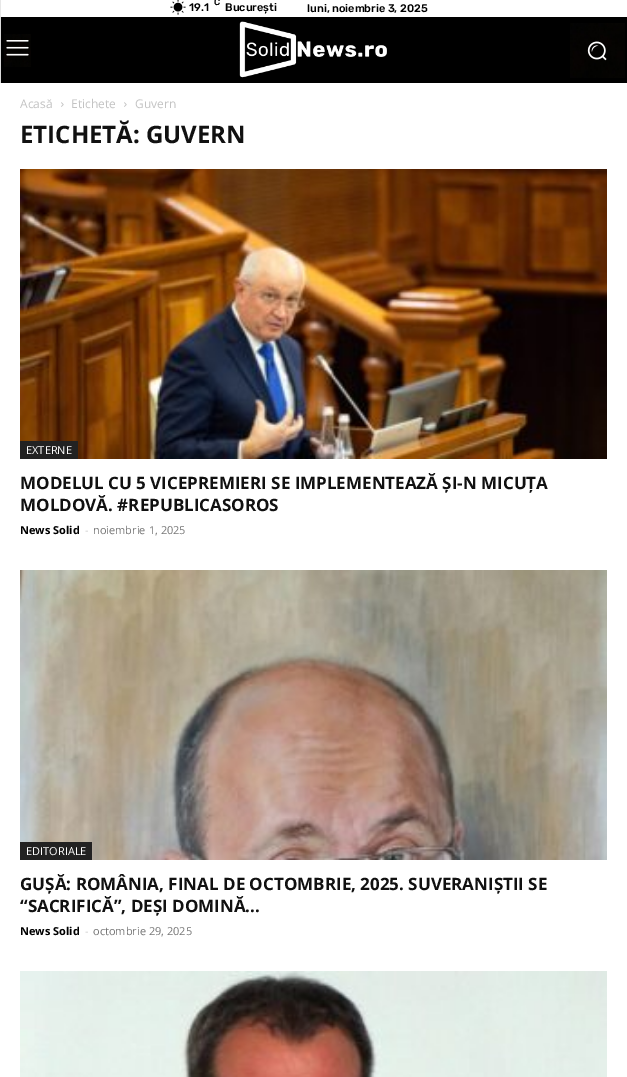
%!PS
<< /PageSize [627 1077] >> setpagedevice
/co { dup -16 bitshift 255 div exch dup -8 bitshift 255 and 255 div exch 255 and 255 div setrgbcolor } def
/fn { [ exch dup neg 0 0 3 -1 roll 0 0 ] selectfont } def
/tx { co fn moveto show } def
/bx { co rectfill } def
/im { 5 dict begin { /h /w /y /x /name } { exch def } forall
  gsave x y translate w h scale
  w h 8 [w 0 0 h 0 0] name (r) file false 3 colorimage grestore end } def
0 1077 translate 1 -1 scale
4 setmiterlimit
0 0 627 1077 16#E7E7E7 bx
1 0 626 17 16#FFFFFF bx
(media/1.raw) 170 0 16 15 im
1 17 626 66 16#000000 bx
0 17 1 66 16#DBDBDB bx
(media/2.raw) 4 34 27 33 im
(media/3.raw) 6 40 23 16 im
(media/4.raw) 239 21 148 57 im
(media/5.raw) 570 23 55 55 im
(media/6.raw) 587 41 20 20 im
0 83 627 994 16#FFFFFF bx
(media/7.raw) 61 102 3 5 im
(media/7.raw) 124 102 3 5 im
(media/8.raw) 20 169 587 290 im
20 441 58 18 16#222222 bx
(media/9.raw) 20 570 587 290 im
20 842 72 18 16#222222 bx
(media/10.raw) 20 971 587 106 im
(19.1) 189 11 /Rubik-Medium 11 16#000000 tx
(C) 214 5 /Rubik-Medium 9 16#000000 tx
(București) 225 11 /Rubik-Medium 11 16#000000 tx
(luni, noiembrie 3, 2025) 307 12 /Rubik-Medium 11 16#000000 tx
(Acasă) 20 108 /OpenSans-Regular 12 16#C3C3C3 tx
(Etichete) 71 108 /OpenSans-Regular 12 16#C3C3C3 tx
(Guvern) 135 108 /OpenSans-Regular 12 16#C3C3C3 tx
(ETICHETĂ: GUVERN) 20 143 /OpenSans-Bold 24 16#111111 tx
(EXTERNE) 26 454 /OpenSans-Regular 11 16#FFFFFF tx
(MODELUL CU 5 VICEPREMIERI SE IMPLEMENTEAZĂ ȘI-N MICUȚA) 20 489 /OpenSans-Bold 17 16#111111 tx
(MOLDOVĂ. #REPUBLICASOROS) 20 511 /OpenSans-Bold 17 16#111111 tx
(News Solid) 20 534 /OpenSans-Bold 11 16#000000 tx
(-) 85 534 /OpenSans-Regular 11 16#CCCCCC tx
(noiembrie 1, 2025) 93 534 /OpenSans-Regular 11 16#767676 tx
(EDITORIALE) 26 855 /OpenSans-Regular 11 16#FFFFFF tx
(GUȘĂ: ROMÂNIA, FINAL DE OCTOMBRIE, 2025. SUVERANIȘTII SE) 20 890 /OpenSans-Bold 17 16#111111 tx
(“SACRIFICĂ”, DEȘI DOMINĂ...) 20 912 /OpenSans-Bold 17 16#111111 tx
(News Solid) 20 935 /OpenSans-Bold 11 16#000000 tx
(-) 85 935 /OpenSans-Regular 11 16#CCCCCC tx
(octombrie 29, 2025) 93 935 /OpenSans-Regular 11 16#767676 tx
showpage
